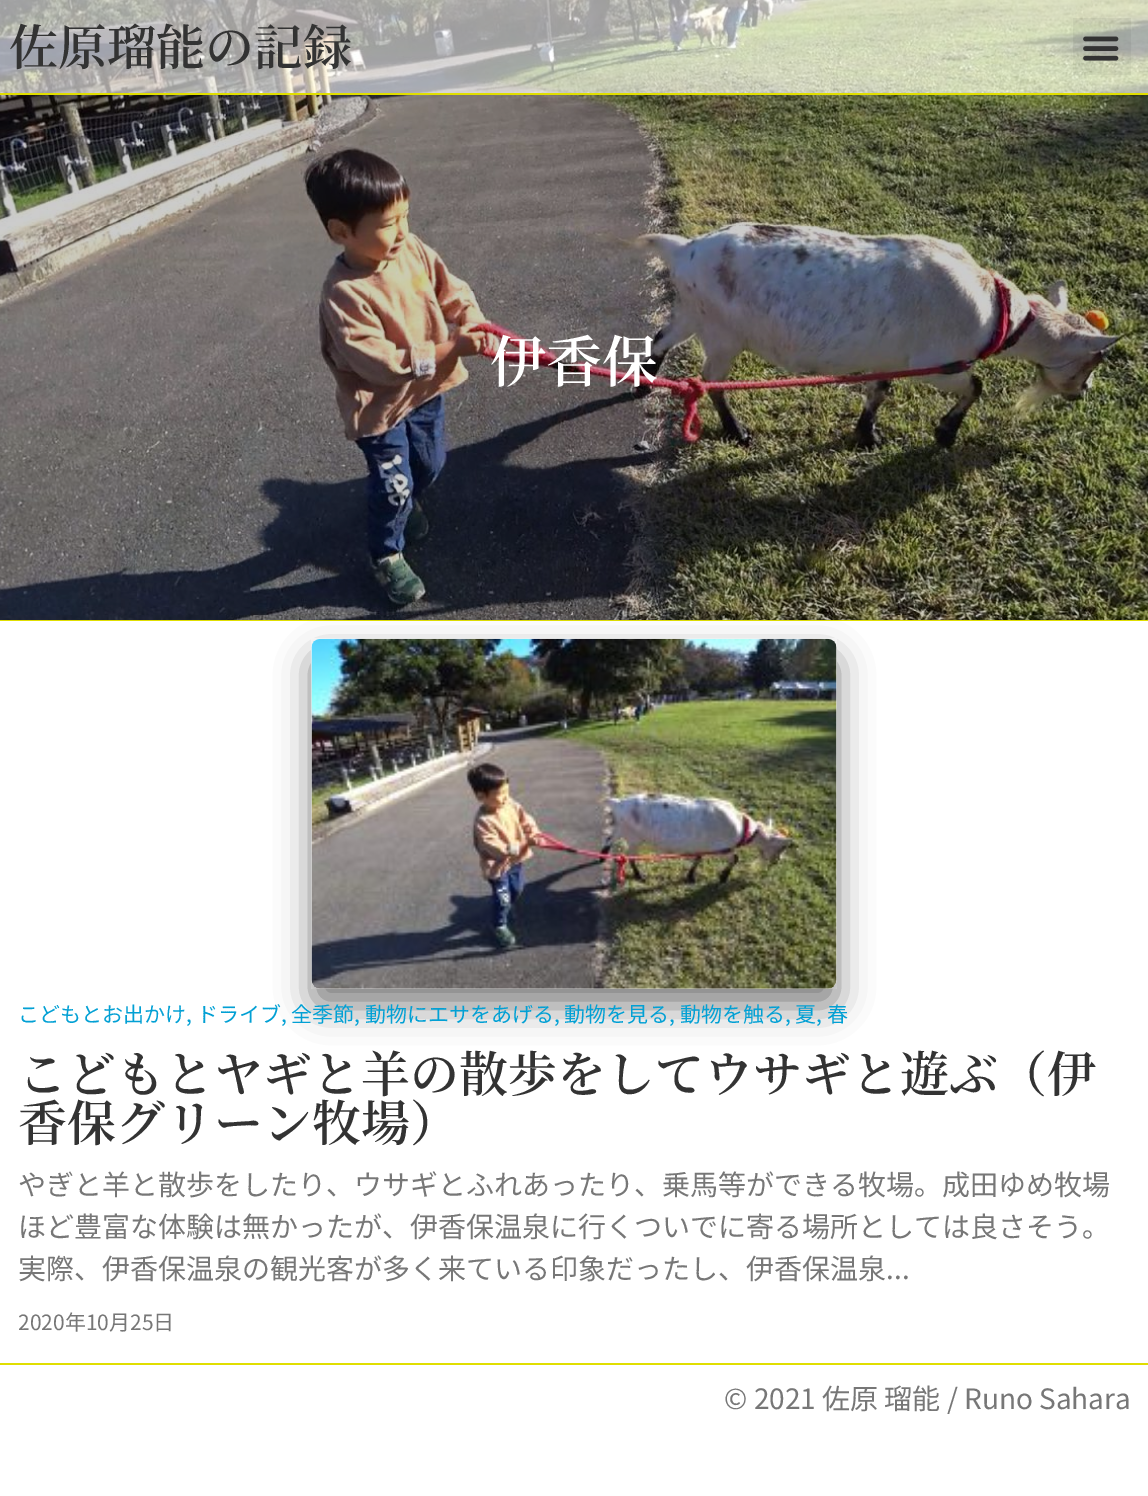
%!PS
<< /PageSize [1148 1496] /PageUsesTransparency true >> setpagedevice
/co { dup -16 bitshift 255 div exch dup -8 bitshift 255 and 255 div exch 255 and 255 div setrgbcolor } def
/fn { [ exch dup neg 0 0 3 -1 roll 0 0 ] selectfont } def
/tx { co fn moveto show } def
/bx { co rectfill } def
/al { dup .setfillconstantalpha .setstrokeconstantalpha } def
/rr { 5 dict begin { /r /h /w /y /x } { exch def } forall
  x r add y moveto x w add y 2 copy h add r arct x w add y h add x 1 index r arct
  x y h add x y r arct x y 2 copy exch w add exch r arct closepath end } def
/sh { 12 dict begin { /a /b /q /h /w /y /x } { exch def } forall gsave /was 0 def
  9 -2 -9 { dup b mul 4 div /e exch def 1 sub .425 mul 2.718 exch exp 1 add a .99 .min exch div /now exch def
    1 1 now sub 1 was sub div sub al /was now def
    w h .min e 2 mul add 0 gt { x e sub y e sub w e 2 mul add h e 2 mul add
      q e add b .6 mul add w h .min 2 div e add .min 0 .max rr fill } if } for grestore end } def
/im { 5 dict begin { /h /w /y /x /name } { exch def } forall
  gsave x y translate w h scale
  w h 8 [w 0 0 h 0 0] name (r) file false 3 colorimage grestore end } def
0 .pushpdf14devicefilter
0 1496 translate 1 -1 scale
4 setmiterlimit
0 0 1148 1496 16#FFFFFF bx
(media/2.raw) 0 0 1148 620 im
0 93 1148 2 16#E0DE00 bx
0.6 al
0 0 1148 93 16#FFFFFF bx
0.05 al
1073 18 58 57 16#000000 bx
1 al
(media/1.raw) 1083 36 36 25 im
0 620 1148 1 16#E0DE00 bx
0.2 al
0 95 1148 525 16#000000 bx
1 al
312 656 525 350 9 17.5 .5 sh
(media/3.raw) 311 638 526 351 im
0 1363 1148 2 16#E0DE00 bx
(佐原瑠能の記録) 9 65 /NotoSerifJP-SemiBold 49 16#333333 tx
(伊香保) 490 382 /NotoSerifJP-SemiBold 56 16#FFFFFF tx
(こどもとお出かけ, ドライブ, 全季節, 動物にエサをあげる, 動物を見る, 動物を触る, 夏, 春) 18 1022 /NotoSansJP-Regular 21 16#02A0D4 tx
(こどもとヤギと羊の散歩をしてウサギと遊ぶ（伊) 18 1092 /NotoSerifJP-SemiBold 49 16#333333 tx
(香保グリーン牧場）) 18 1141 /NotoSerifJP-SemiBold 49 16#333333 tx
(やぎと羊と散歩をしたり、ウサギとふれあったり、乗馬等ができる牧場。成田ゆめ牧場) 18 1195 /NotoSansJP-Regular 28 16#777777 tx
(ほど豊富な体験は無かったが、伊香保温泉に行くついでに寄る場所としては良さそう。) 18 1237 /NotoSansJP-Regular 28 16#777777 tx
(実際、伊香保温泉の観光客が多く来ている印象だったし、伊香保温泉...) 18 1279 /NotoSansJP-Regular 28 16#777777 tx
(2020年10月25日) 18 1330 /NotoSansJP-Regular 21 16#777777 tx
(© 2021 佐原 瑠能 / Runo Sahara) 724 1409 /NotoSansJP-Regular 28 16#777777 tx
.poppdf14devicefilter showpage
